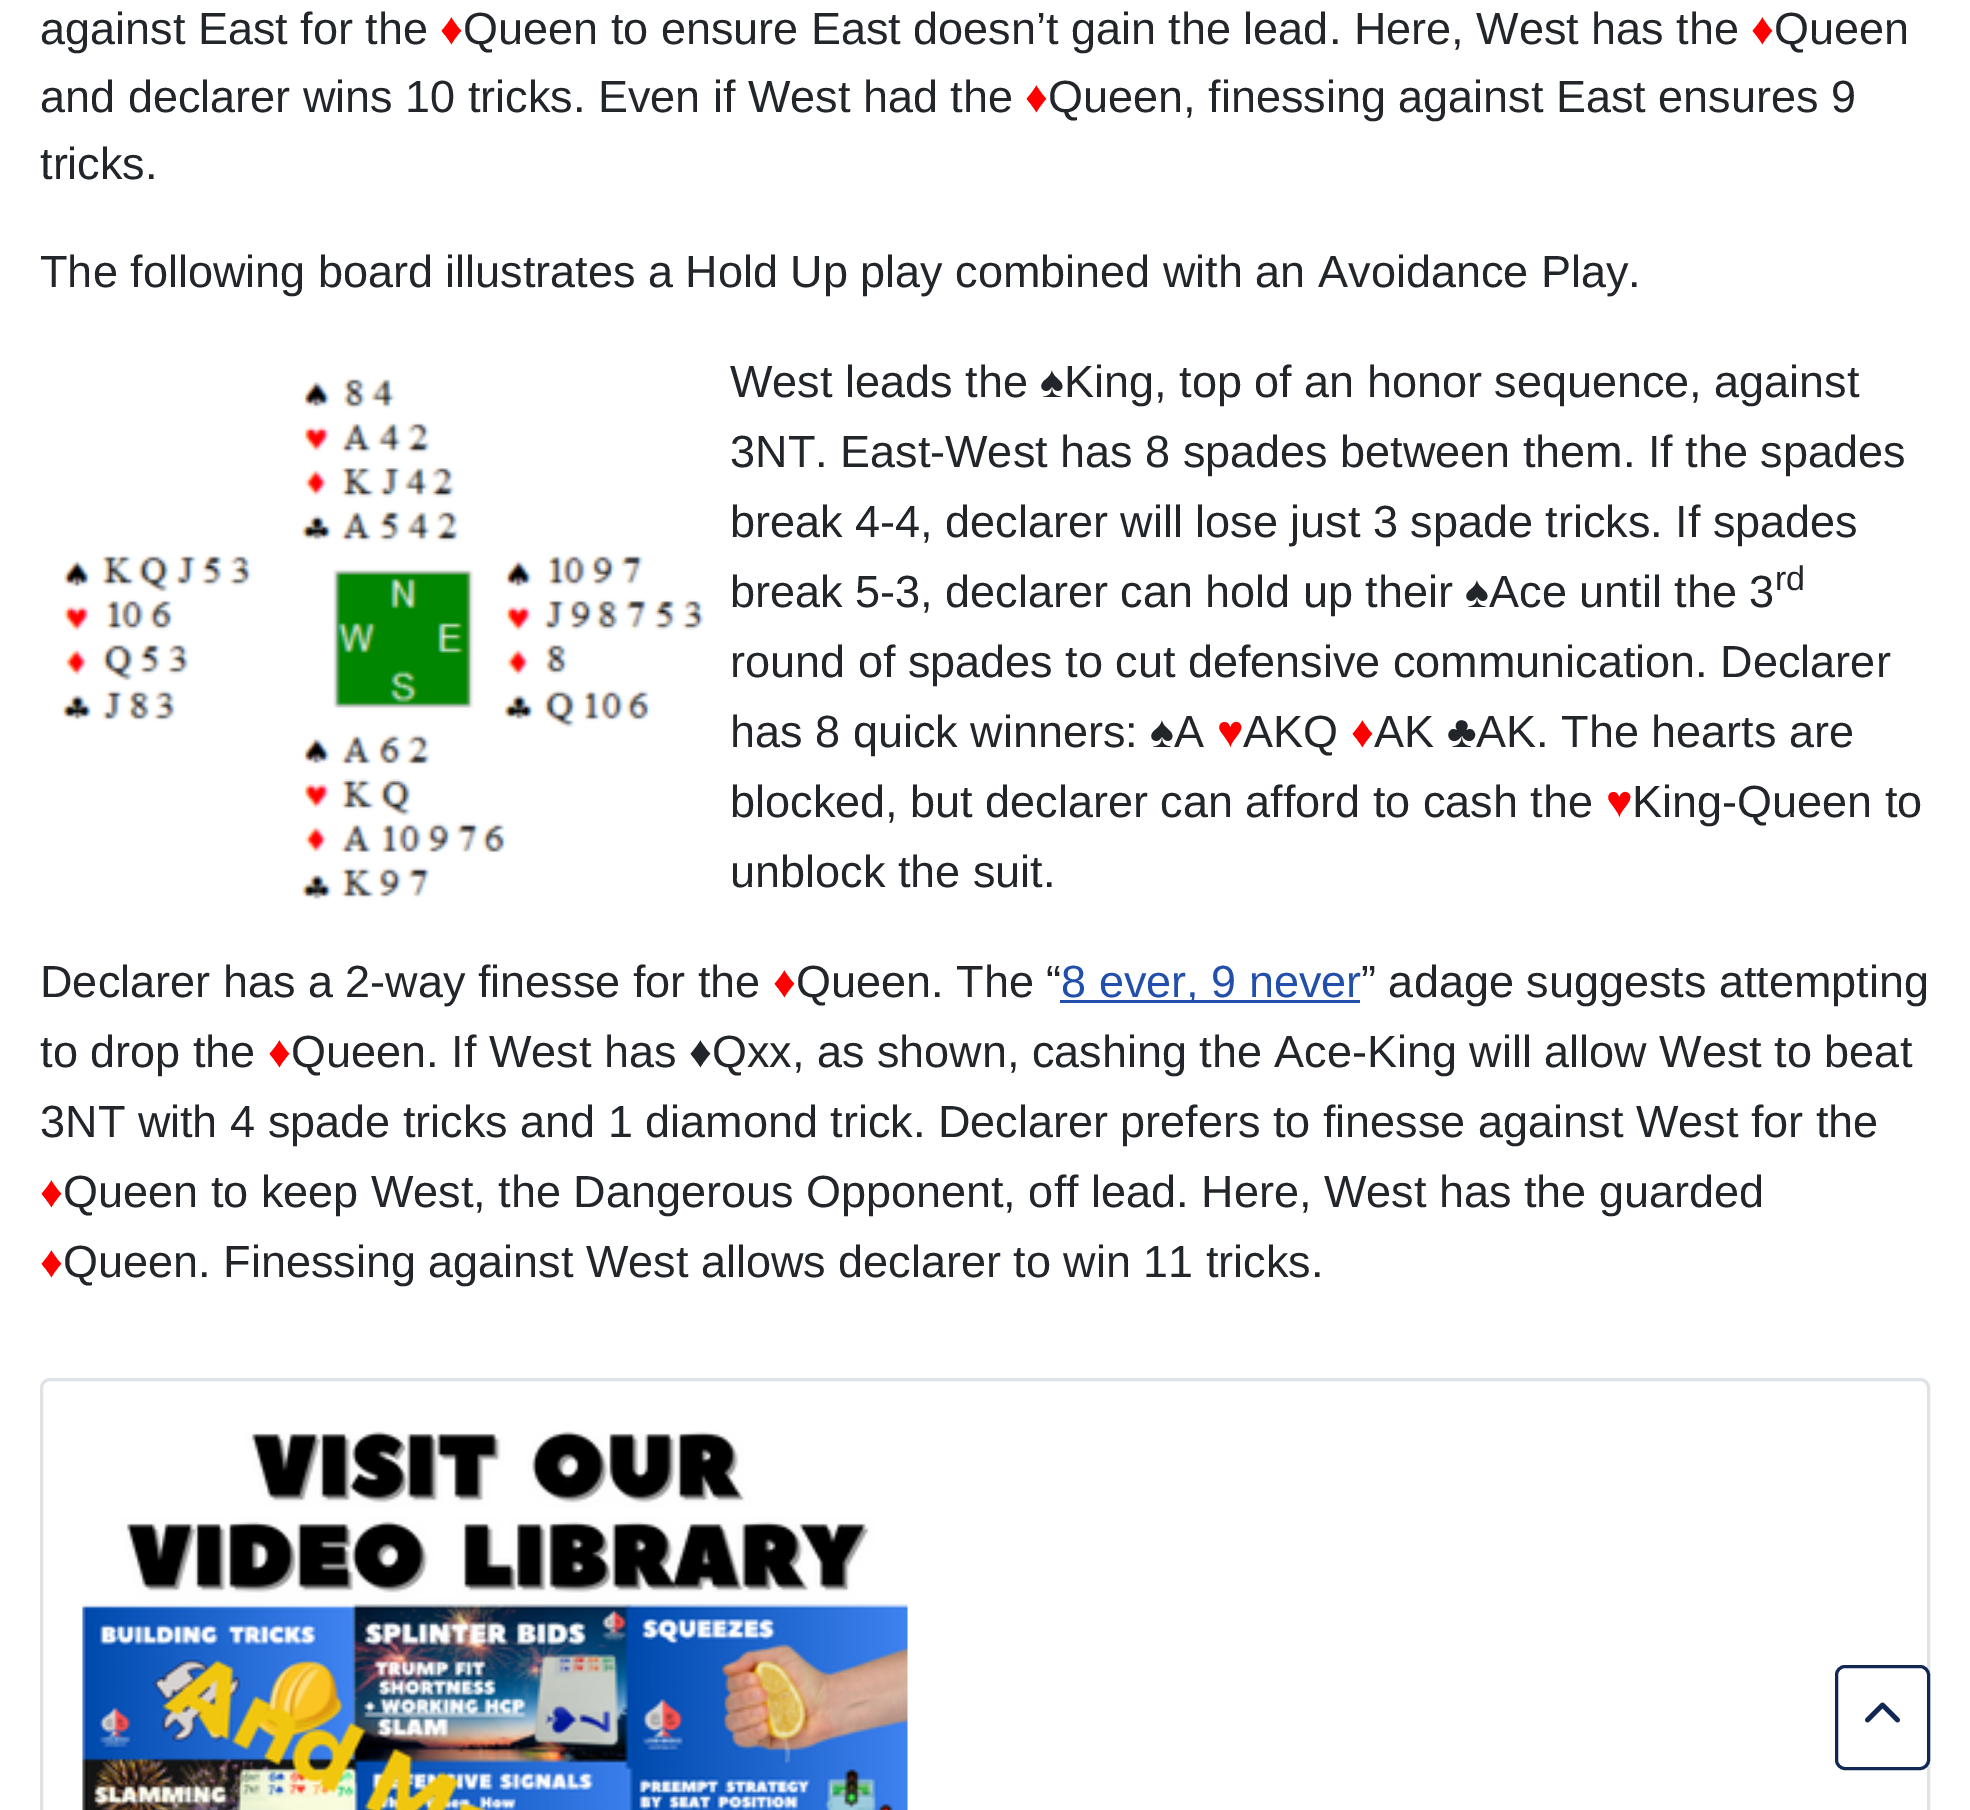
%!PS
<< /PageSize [1970 1810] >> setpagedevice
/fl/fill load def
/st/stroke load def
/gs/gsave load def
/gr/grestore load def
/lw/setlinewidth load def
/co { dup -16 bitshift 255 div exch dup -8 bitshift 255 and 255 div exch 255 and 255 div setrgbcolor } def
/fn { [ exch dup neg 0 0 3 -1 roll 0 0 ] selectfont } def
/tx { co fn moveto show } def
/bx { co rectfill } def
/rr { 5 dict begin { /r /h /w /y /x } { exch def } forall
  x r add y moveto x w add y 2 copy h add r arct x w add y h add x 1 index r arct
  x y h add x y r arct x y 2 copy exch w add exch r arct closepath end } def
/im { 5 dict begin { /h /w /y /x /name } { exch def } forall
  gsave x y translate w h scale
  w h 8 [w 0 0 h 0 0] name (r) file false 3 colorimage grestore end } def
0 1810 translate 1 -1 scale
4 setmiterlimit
0 0 1970 1810 16#FFFFFF bx
(media/1.raw) 61 378 643 522 im
1060 1000 300 3 16#224FAA bx
16#DFE3E7 co
3 lw
41.5 1379.5 1887 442 8.5 rr st
(media/2.raw) 82 1431 826 379 im
16#FFFFFF co
1836.5 1666.5 92 102 8.5 rr gs fl gr
16#112855 co
st
(media/3.raw) 1865 1702 35 21 im
(against East for the) 40 44 /LiberationSans-Regular 45 16#22262A tx
(♦) 440 44 /LiberationSans-Regular 45 16#FF0000 tx
(Queen to ensure East doesn’t gain the lead. Here, West has the) 463 44 /LiberationSans-Regular 45 16#22262A tx
(♦) 1751 44 /LiberationSans-Regular 45 16#FF0000 tx
(Queen) 1774 44 /LiberationSans-Regular 45 16#22262A tx
(and declarer wins 10 tricks. Even if West had the) 40 112 /LiberationSans-Regular 45 16#22262A tx
(♦) 1025 112 /LiberationSans-Regular 45 16#FF0000 tx
(Queen, finessing against East ensures 9) 1048 112 /LiberationSans-Regular 45 16#22262A tx
(tricks.) 40 179 /LiberationSans-Regular 45 16#22262A tx
(The following board illustrates a Hold Up play combined with an Avoidance Play.) 40 287 /LiberationSans-Regular 45 16#22262A tx
(West leads the ♠King, top of an honor sequence, against) 730 397 /LiberationSans-Regular 45 16#22262A tx
(3NT. East-West has 8 spades between them. If the spades) 730 467 /LiberationSans-Regular 45 16#22262A tx
(break 4-4, declarer will lose just 3 spade tricks. If spades) 730 537 /LiberationSans-Regular 45 16#22262A tx
(break 5-3, declarer can hold up their ♠Ace until the 3) 730 607 /LiberationSans-Regular 45 16#22262A tx
(rd) 1775 590 /LiberationSans-Regular 34 16#22262A tx
(round of spades to cut defensive communication. Declarer) 730 677 /LiberationSans-Regular 45 16#22262A tx
(has 8 quick winners: ♠A) 730 747 /LiberationSans-Regular 45 16#22262A tx
(♥) 1217 747 /LiberationSans-Regular 45 16#FF0000 tx
(AKQ) 1243 747 /LiberationSans-Regular 45 16#22262A tx
(♦) 1351 747 /LiberationSans-Regular 45 16#FF0000 tx
(AK ♣AK. The hearts are) 1374 747 /LiberationSans-Regular 45 16#22262A tx
(blocked, but declarer can afford to cash the) 730 817 /LiberationSans-Regular 45 16#22262A tx
(♥) 1606 817 /LiberationSans-Regular 45 16#FF0000 tx
(King-Queen to) 1632 817 /LiberationSans-Regular 45 16#22262A tx
(unblock the suit.) 730 887 /LiberationSans-Regular 45 16#22262A tx
(Declarer has a 2-way finesse for the) 40 997 /LiberationSans-Regular 45 16#22262A tx
(♦) 773 997 /LiberationSans-Regular 45 16#FF0000 tx
(Queen. The “) 796 997 /LiberationSans-Regular 45 16#22262A tx
(8 ever, 9 never) 1061 997 /LiberationSans-Regular 45 16#224FAA tx
(” adage suggests attempting) 1361 997 /LiberationSans-Regular 45 16#22262A tx
(to drop the) 40 1067 /LiberationSans-Regular 45 16#22262A tx
(♦) 268 1067 /LiberationSans-Regular 45 16#FF0000 tx
(Queen. If West has ♦Qxx, as shown, cashing the Ace-King will allow West to beat) 291 1067 /LiberationSans-Regular 45 16#22262A tx
(3NT with 4 spade tricks and 1 diamond trick. Declarer prefers to finesse against West for the) 40 1137 /LiberationSans-Regular 45 16#22262A tx
(♦) 40 1207 /LiberationSans-Regular 45 16#FF0000 tx
(Queen to keep West, the Dangerous Opponent, off lead. Here, West has the guarded) 63 1207 /LiberationSans-Regular 45 16#22262A tx
(♦) 40 1277 /LiberationSans-Regular 45 16#FF0000 tx
(Queen. Finessing against West allows declarer to win 11 tricks.) 63 1277 /LiberationSans-Regular 45 16#22262A tx
showpage
